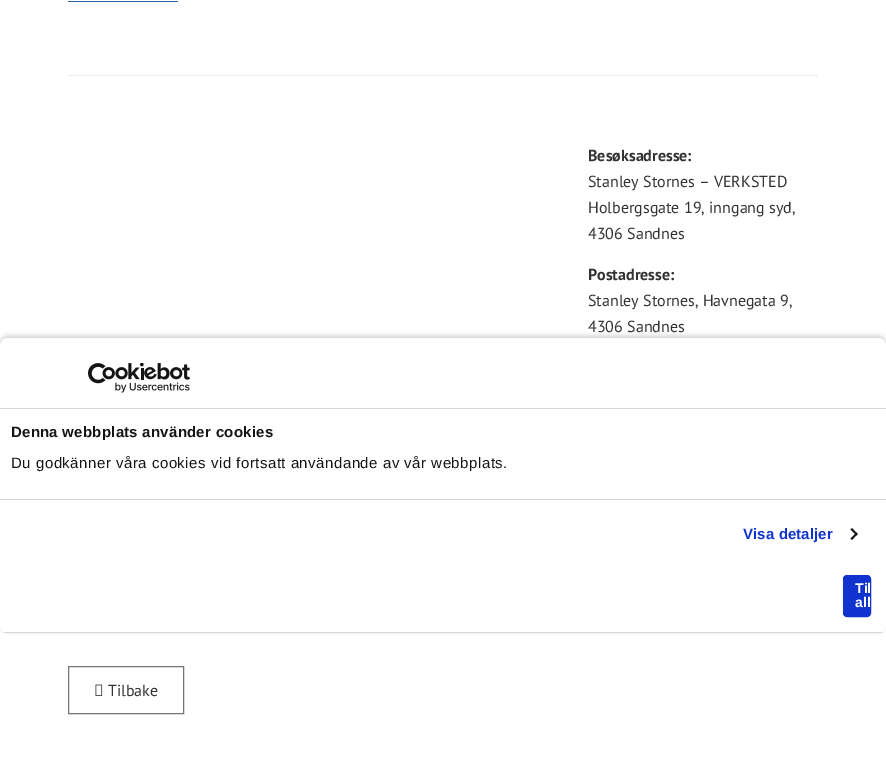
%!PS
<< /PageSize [886 780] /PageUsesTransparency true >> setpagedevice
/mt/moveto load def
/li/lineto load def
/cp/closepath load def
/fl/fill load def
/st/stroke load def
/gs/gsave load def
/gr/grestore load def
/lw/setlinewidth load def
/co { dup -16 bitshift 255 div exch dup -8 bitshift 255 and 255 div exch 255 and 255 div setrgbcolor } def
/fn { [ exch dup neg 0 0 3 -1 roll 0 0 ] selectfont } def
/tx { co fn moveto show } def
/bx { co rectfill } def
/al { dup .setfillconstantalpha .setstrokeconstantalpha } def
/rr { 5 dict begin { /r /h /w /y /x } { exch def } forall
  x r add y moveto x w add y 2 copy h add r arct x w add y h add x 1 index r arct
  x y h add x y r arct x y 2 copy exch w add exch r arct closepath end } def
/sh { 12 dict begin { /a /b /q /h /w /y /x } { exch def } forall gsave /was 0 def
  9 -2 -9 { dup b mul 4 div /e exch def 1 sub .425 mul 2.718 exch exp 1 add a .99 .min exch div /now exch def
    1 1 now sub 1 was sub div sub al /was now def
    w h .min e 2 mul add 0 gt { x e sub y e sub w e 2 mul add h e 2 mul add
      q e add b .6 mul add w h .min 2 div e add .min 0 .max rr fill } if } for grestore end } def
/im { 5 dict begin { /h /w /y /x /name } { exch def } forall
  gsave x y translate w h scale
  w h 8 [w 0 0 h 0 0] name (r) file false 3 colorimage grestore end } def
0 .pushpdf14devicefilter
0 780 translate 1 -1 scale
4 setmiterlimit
0 0 886 780 16#FFFFFF bx
68 1 110 1 16#2C60A3 bx
68 75 750 1 16#EBEBEB bx
16#757575 co
68.5 666.5 115 47 rectstroke
(media/1.raw) 95 684 8 12 im
16#CCCCCC co
0 336 886 295 8 2.5 1 sh
16#FFFFFF co
0 338 886 295 8 rr fl
0 408 886 1 16#D6D6D6 bx
(media/2.raw) 88 363 102 30 im
0 499 886 1 16#D6D6D6 bx
16#141414 co
852 528 mt 857.5 534 li 856.5 535.5 li 850.5 529.5 li cp fl
856.5 532.5 mt 857.5 534 li 852 540 li 850.5 538.5 li cp fl
gs
0 338 886 295 8 rr clip newpath
0 632 886 1 16#D6D6D6 bx
gr
16#1032CF co
844 576 26 40 3 rr gs fl gr
2 lw
st
(Besøksadresse:) 588 161 /PTSans-Bold 16 16#333333 tx
(Stanley Stornes – VERKSTED) 588 187 /PTSans-Regular 16 16#333333 tx
(Holbergsgate 19, inngang syd,) 588 213 /PTSans-Regular 16 16#333333 tx
(4306 Sandnes) 588 239 /PTSans-Regular 16 16#333333 tx
(Postadresse:) 588 280 /PTSans-Bold 16 16#333333 tx
(Stanley Stornes, Havnegata 9,) 588 306 /PTSans-Regular 16 16#333333 tx
(4306 Sandnes) 588 332 /PTSans-Regular 16 16#333333 tx
(Tilbake) 108 696 /PTSans-Regular 16 16#333333 tx
/LiberationSans-Bold 15 fn
16#141414 co
11 437 mt .25 0 (Denna webbplats använder cookies) ashow
/LiberationSans-Regular 15 fn
11 468 mt .5 0 (Du godkänner våra cookies vid fortsatt användande av vår webbplats.) ashow
/LiberationSans-Bold 15 fn
16#1032CF co
743 539 mt .1 0 (Visa detaljer) ashow
(Til) 855 593 /LiberationSans-Bold 14 16#FFFFFF tx
(all) 855 607 /LiberationSans-Bold 14 16#FFFFFF tx
.poppdf14devicefilter showpage
